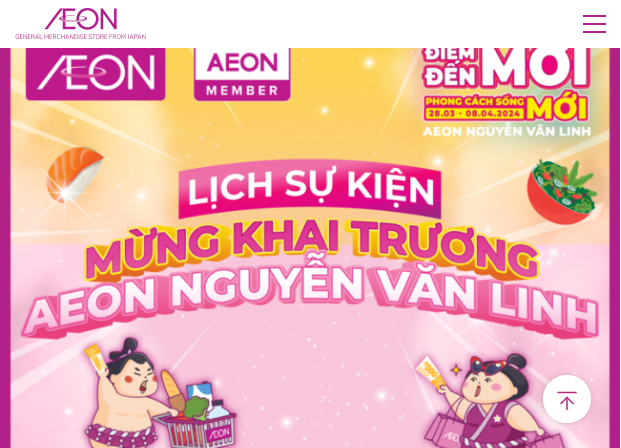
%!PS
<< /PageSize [621 448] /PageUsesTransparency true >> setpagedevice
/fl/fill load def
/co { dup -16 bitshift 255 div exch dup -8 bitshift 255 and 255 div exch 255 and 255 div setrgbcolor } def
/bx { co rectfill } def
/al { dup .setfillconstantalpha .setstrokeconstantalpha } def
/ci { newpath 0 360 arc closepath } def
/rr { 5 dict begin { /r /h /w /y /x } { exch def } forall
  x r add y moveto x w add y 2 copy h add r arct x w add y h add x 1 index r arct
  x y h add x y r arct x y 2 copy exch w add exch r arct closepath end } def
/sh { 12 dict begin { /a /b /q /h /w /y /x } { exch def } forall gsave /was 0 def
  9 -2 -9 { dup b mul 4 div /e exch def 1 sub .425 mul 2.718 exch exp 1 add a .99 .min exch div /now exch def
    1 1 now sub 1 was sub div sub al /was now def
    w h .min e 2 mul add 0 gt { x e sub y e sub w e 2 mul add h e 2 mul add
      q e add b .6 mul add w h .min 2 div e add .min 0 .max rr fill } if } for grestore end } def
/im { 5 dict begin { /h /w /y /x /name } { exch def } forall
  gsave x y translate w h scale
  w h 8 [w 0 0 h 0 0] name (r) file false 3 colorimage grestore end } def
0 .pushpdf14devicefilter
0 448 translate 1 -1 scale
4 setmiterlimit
0 0 621 448 16#FFFFFF bx
(media/1.raw) 15 8 131 31 im
583 15 23 2 16#B31E8D bx
583 23 23 2 16#B31E8D bx
583 31 23 2 16#B31E8D bx
(media/2.raw) 0 48 620 400 im
16#000000 co
543 375 48 48 24 3 .16 sh
16#FFFFFF co
567 399 24 ci fl
(media/3.raw) 557 391 20 20 im
.poppdf14devicefilter showpage
